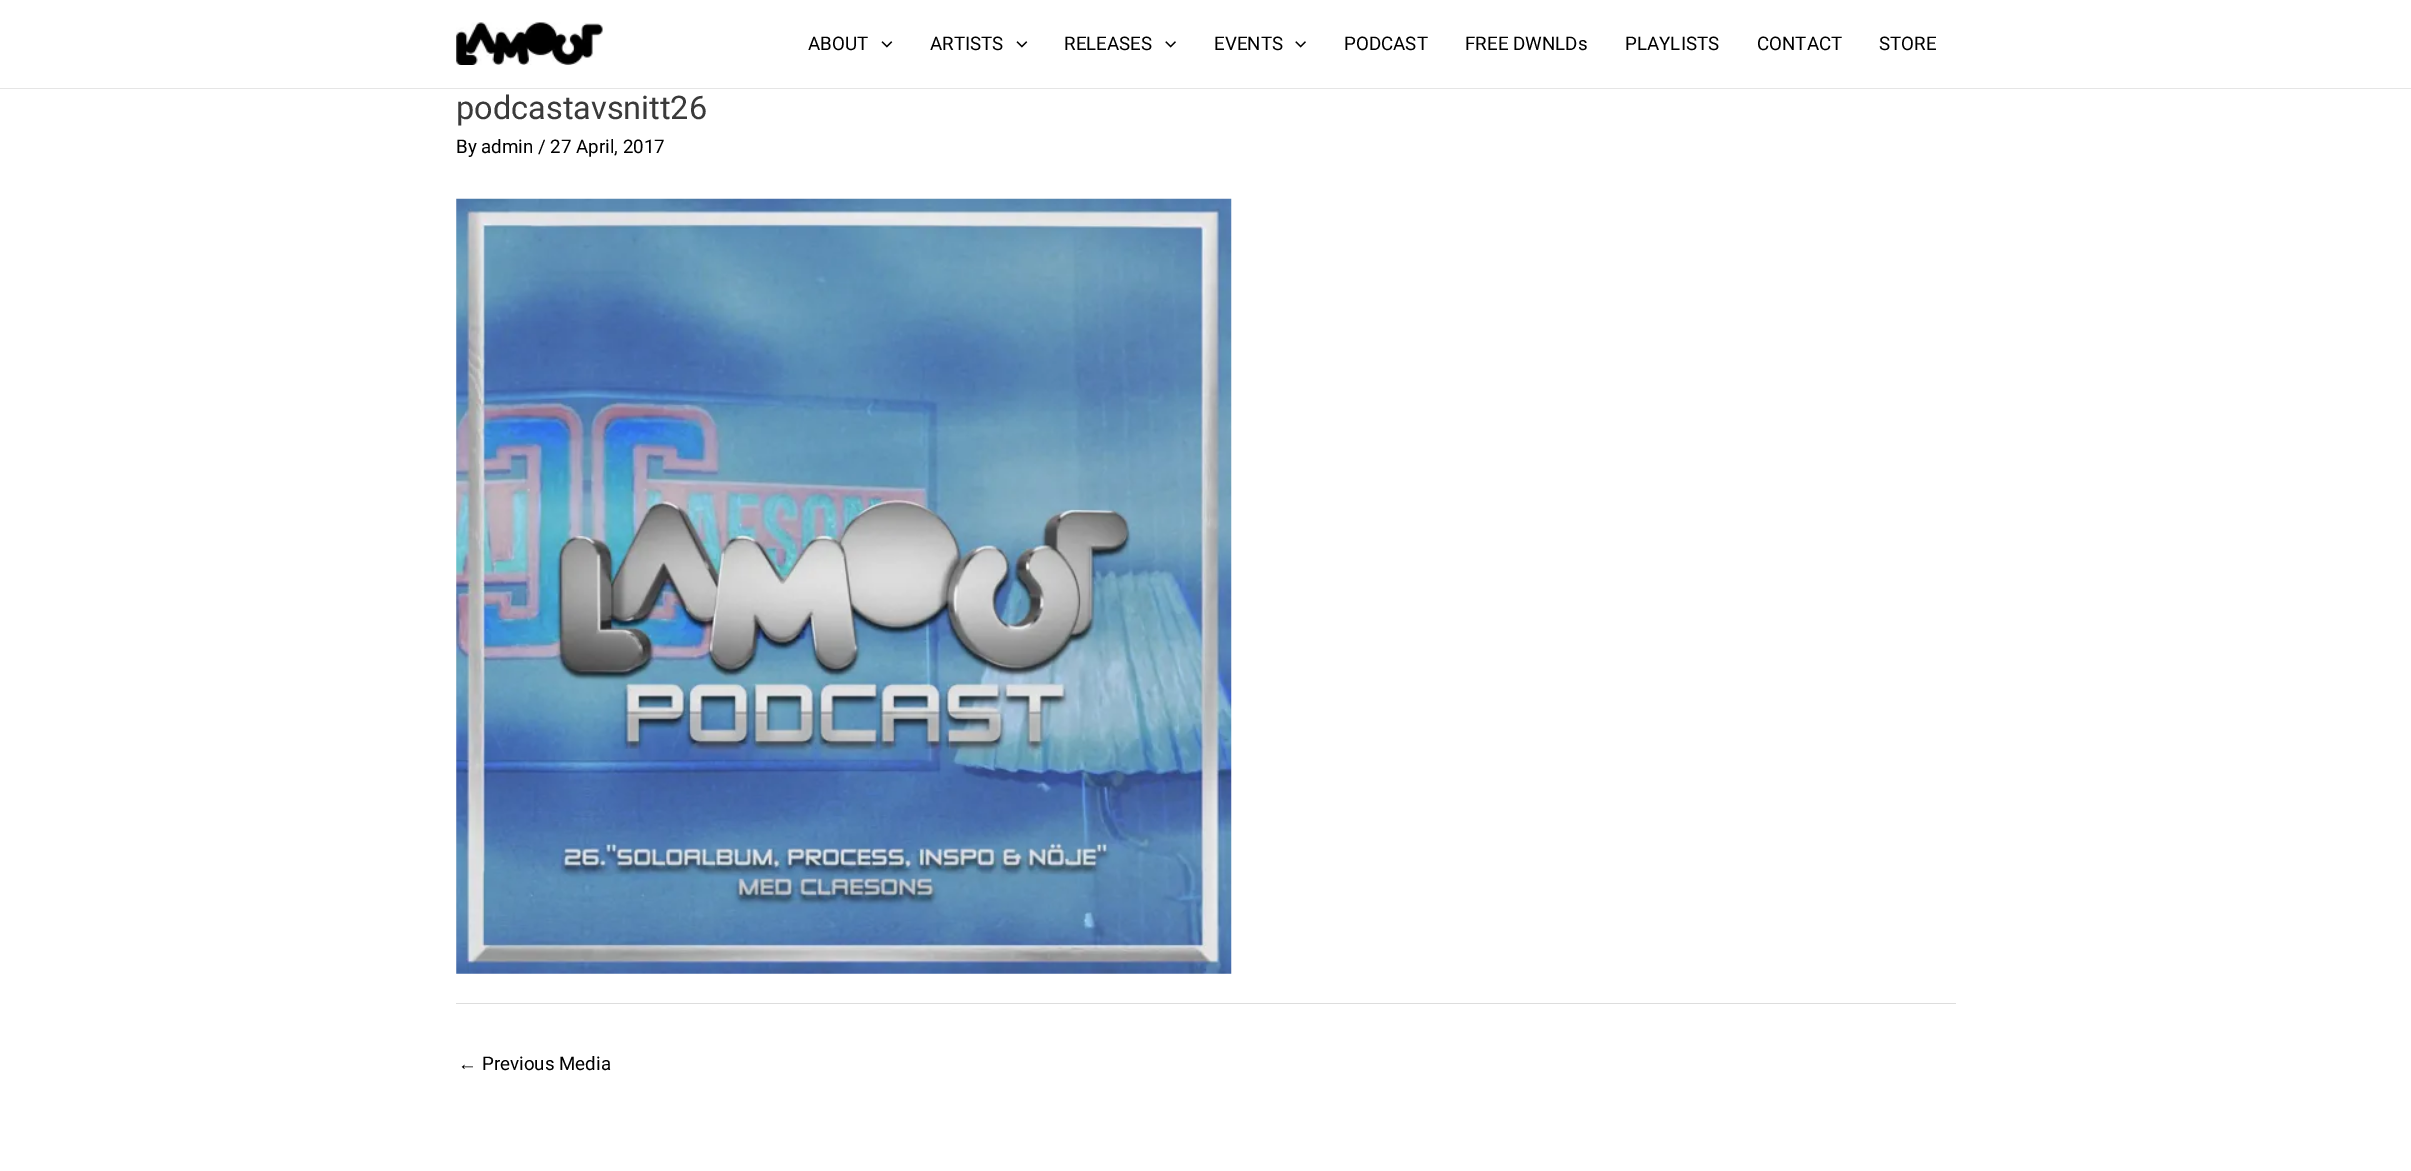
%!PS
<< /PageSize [2411 1171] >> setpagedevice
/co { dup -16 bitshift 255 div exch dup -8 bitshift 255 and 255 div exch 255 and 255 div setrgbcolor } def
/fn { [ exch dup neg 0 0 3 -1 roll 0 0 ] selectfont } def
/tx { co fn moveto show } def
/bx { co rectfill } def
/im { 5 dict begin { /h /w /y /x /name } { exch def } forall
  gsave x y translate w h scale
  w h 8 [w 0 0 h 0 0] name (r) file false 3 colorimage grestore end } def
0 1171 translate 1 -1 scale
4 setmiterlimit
0 0 2411 1171 16#FFFFFF bx
0 88 2411 1 16#E5E5E5 bx
(media/1.raw) 456 22 147 43 im
(media/2.raw) 881 41 12 7 im
(media/2.raw) 1016 41 12 7 im
(media/3.raw) 1165 41 11 7 im
(media/3.raw) 1295 41 11 7 im
(media/4.raw) 456 198 776 776 im
456 1003 1500 1 16#DDDDDD bx
(ABOUT) 808 50 /Roboto-Regular 18.75 16#000000 tx
(ARTISTS) 930 50 /Roboto-Regular 18.75 16#000000 tx
(RELEASES) 1064 50 /Roboto-Regular 18.75 16#000000 tx
(EVENTS) 1214 50 /Roboto-Regular 18.75 16#000000 tx
(PODCAST) 1344 50 /Roboto-Regular 18.75 16#000000 tx
(FREE DWNLDs) 1465 50 /Roboto-Regular 18.75 16#000000 tx
(PLAYLISTS) 1625 50 /Roboto-Regular 18.75 16#000000 tx
(CONTACT) 1757 50 /Roboto-Regular 18.75 16#000000 tx
(STORE) 1879 50 /Roboto-Regular 18.75 16#000000 tx
(podcastavsnitt26) 456 119 /Roboto-Regular 32.5 16#3A3A3A tx
(By admin / 27 April, 2017) 456 153 /Roboto-Regular 18.75 16#000000 tx
(←) 458 1070 /LiberationSans-Regular 18.75 16#000000 tx
(Previous Media) 482 1070 /Roboto-Regular 18.75 16#000000 tx
showpage
